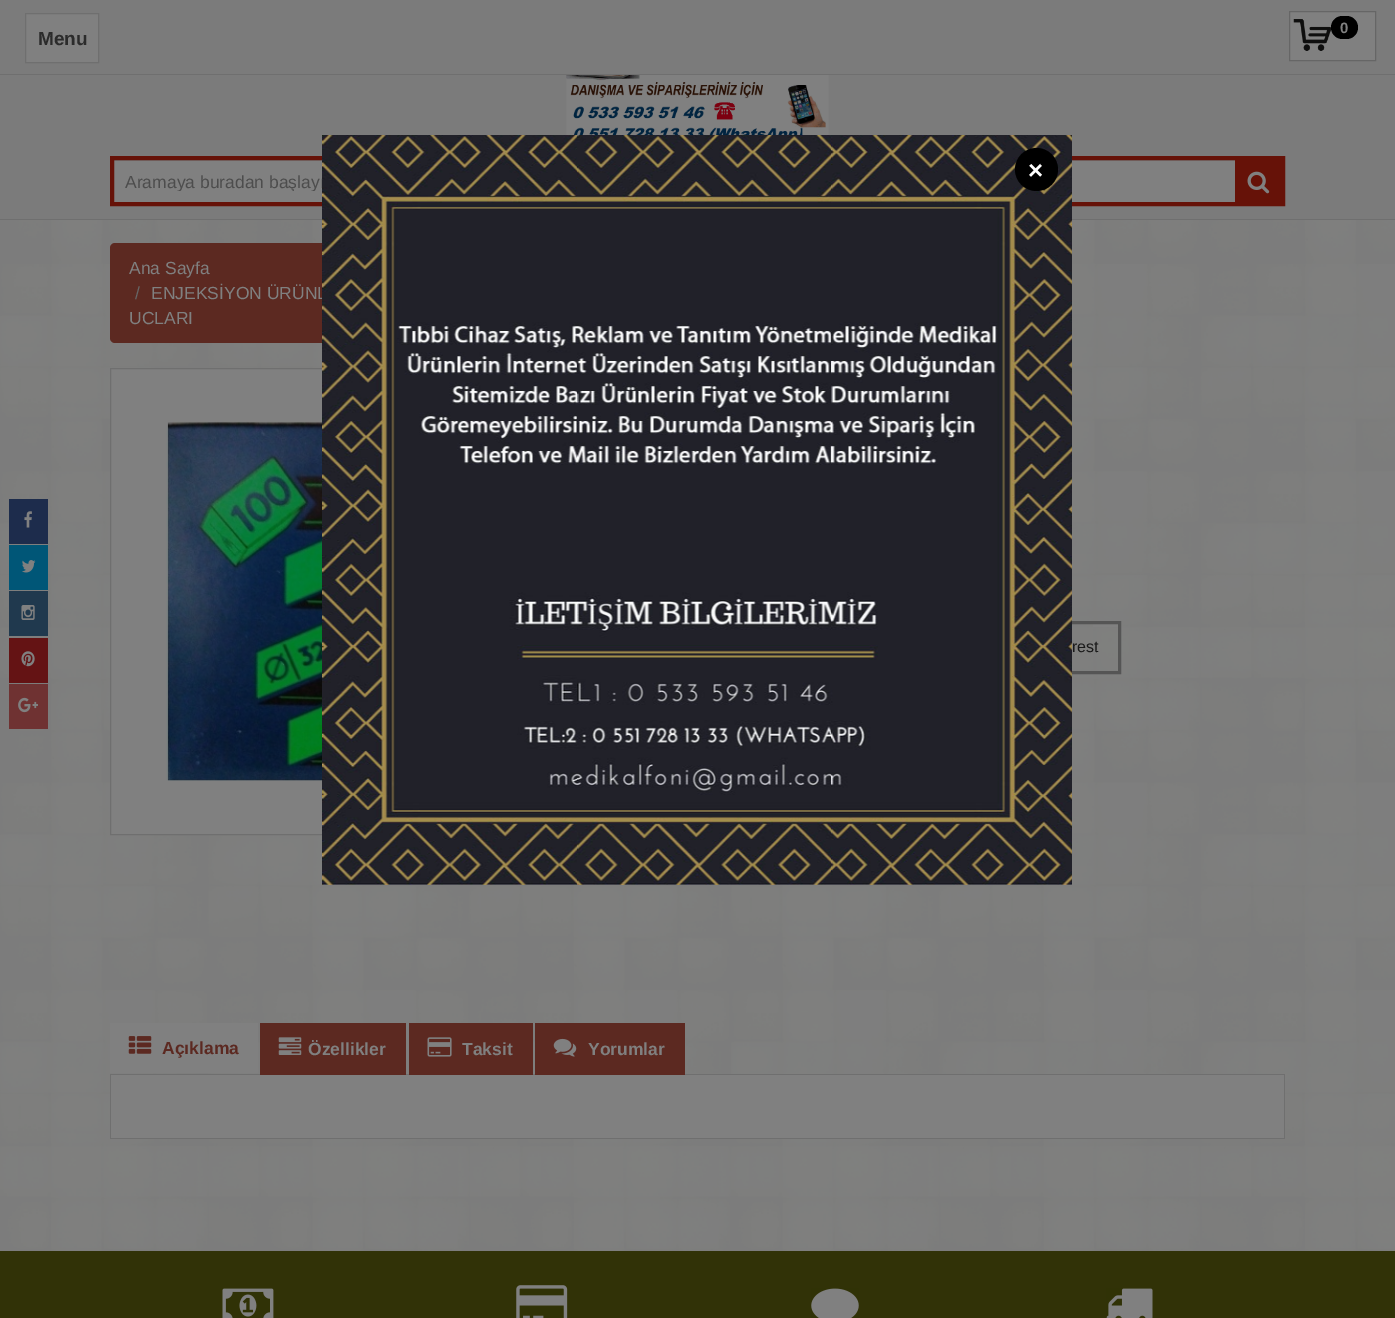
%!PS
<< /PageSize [1395 1318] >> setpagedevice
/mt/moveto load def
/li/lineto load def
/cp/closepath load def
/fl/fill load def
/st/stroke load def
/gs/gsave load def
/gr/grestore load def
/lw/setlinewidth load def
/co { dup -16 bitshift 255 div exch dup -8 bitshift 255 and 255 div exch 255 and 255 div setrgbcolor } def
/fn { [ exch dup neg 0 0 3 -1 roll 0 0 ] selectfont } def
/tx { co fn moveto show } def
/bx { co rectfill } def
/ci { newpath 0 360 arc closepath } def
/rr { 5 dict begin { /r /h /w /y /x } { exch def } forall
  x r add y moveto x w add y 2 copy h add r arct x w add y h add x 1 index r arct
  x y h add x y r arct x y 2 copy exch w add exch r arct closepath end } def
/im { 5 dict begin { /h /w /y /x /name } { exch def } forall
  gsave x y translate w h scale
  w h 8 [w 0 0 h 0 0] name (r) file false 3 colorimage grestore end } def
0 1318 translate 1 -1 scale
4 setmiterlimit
0 0 1395 1318 16#808080 bx
(media/1.raw) 0 220 1395 1031 im
0 0 1395 74 16#7B7B7B bx
0 74 1395 1 16#6F6F6F bx
16#808080 co
1289.5 11.5 mt 1375.5 11.5 li 1375.5 60.5 li 1289.5 60.5 li cp gs fl gr
16#666666 co
st
(media/2.raw) 1293 19 39 32 im
16#000000 co
1331 16 27 23 11.5 rr fl
16#808080 co
25.5 13.5 mt 98.5 13.5 li 98.5 62.5 li 25.5 62.5 li cp gs fl gr
16#6F6F6F co
st
0 75 1395 144 16#7B7B7B bx
0 219 1395 1 16#6F6F6F bx
(media/4.raw) 566 75 263 60 im
114 161 1121 41 16#808080 bx
114 160 1121 1 16#767676 bx
16#661208 co
4 lw
112 158 1171 46 rectstroke
1235 160 46 42 16#661208 bx
(media/5.raw) 1247 171 23 23 im
9 499 39 45 16#1D2C4C bx
(media/6.raw) 24 511 8 17 im
9 545 39 45 16#005677 bx
(media/7.raw) 22 560 14 13 im
9 591 39 45 16#20394E bx
(media/8.raw) 21 605 14 15 im
9 638 39 45 16#641314 bx
(media/9.raw) 21 651 14 16 im
9 684 39 45 16#6F3232 bx
(media/10.raw) 18 697 20 16 im
16#5C2921 co
110 243 468 100 5 rr fl
111 369 211 465 16#808080 bx
16#6F6F6F co
1 lw
110.5 368.5 467 466 rectstroke
(media/11.raw) 166 421 156 360 im
1093 624 25 3 16#808080 bx
16#555555 co
3 lw
991.5 622.5 128 50 rectstroke
110 1074 1175 1 16#6F6F6F bx
110 1023 148 50 16#808080 bx
(media/12.raw) 128 1036 24 18 im
260 1023 146 52 16#5C2921 bx
(media/13.raw) 278 1037 24 18 im
409 1023 124 52 16#5C2921 bx
(media/14.raw) 427 1037 25 20 im
535 1023 150 52 16#5C2921 bx
(media/15.raw) 553 1038 24 19 im
111 1075 1173 63 16#808080 bx
1284 1075 1 64 16#6F6F6F bx
110 1138 1175 1 16#6F6F6F bx
110 1075 1 64 16#6F6F6F bx
0 1251 1395 67 16#313207 bx
(media/16.raw) 222 1288 52 30 im
(media/17.raw) 516 1285 52 33 im
(media/18.raw) 811 1288 48 30 im
(media/19.raw) 1106 1288 47 30 im
(0) 1340 33 /LiberationSans-Bold 15 16#808080 tx
(Menu) 38 45 /LiberationSans-Bold 19 16#2B2B2B tx
gs
125 171 1145 20 rectclip
(Aramaya buradan başlayı) 125 188 /LiberationSans-Regular 17.5 16#4D4D4D tx
gr
(Ana Sayfa) 129 274 /LiberationSans-Regular 17.5 16#808080 tx
(/) 135 299 /LiberationSans-Regular 17.5 16#666666 tx
(ENJEKSİYON ÜRÜNL) 151 299 /LiberationSans-Regular 17.5 16#808080 tx
(media/3.raw) 322 135 750 750 im
16#000000 co
1036.5 169.5 21.5 ci fl
(×) 1028 179 /LiberationSans-Bold 26 16#FFFFFF tx
(UCLARI) 129 324 /LiberationSans-Regular 17.5 16#808080 tx
(rest) 1072 652 /LiberationSans-Regular 16 16#1A1A1A tx
(Açıklama) 162 1054 /LiberationSans-Bold 17.5 16#5C2921 tx
(Özellikler) 308 1055 /LiberationSans-Bold 17.5 16#808080 tx
(Taksit) 462 1055 /LiberationSans-Bold 17.5 16#808080 tx
(Yorumlar) 588 1055 /LiberationSans-Bold 17.5 16#808080 tx
showpage
